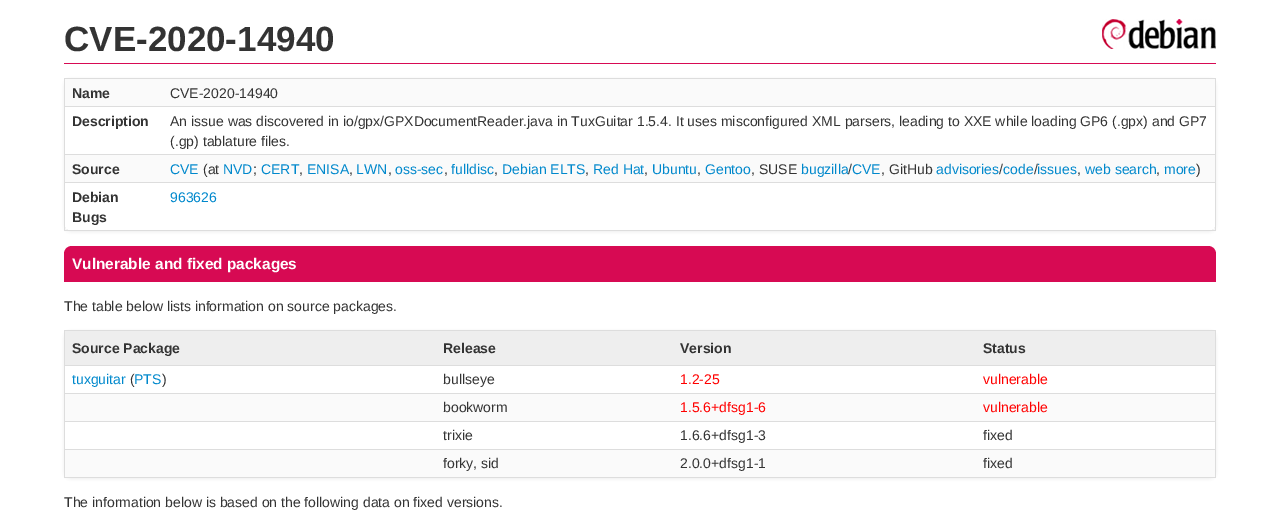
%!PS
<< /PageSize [1280 526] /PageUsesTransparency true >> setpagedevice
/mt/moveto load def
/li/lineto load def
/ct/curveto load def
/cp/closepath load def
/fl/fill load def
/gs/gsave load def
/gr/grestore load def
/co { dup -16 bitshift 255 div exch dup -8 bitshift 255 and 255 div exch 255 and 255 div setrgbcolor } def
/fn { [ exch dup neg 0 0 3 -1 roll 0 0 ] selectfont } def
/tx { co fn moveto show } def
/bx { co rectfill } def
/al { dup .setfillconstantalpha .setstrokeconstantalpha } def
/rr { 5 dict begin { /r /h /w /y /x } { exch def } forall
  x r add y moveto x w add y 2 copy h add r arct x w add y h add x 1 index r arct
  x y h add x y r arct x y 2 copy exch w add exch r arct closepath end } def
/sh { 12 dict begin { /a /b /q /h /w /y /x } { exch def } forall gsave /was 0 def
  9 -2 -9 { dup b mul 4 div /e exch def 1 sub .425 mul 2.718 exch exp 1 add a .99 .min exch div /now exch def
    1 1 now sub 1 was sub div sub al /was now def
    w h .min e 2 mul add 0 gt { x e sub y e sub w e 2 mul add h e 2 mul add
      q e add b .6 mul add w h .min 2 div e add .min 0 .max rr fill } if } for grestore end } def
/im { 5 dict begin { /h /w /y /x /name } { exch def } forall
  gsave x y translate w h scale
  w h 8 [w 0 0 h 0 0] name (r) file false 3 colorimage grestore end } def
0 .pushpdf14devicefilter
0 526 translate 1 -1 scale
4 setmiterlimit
0 0 1280 526 16#FFFFFF bx
(media/1.raw) 1102 19 114 30 im
64 63 1152 1 16#D70A53 bx
gs
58 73 mt 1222 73 li 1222 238 li 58 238 li cp 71 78 mt 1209 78 li 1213 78 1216 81 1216 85 ct 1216 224 li 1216 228 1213 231 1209 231 ct 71 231 li 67 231 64 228 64 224 ct 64 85 li 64 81 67 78 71 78 ct cp eoclip newpath
16#EEEEEE co
64 79 1152 153 7 1.5 1 sh
gr
64 78 1152 1 16#DDDDDD bx
1215 78 1 153 16#DDDDDD bx
64 230 1152 1 16#DDDDDD bx
64 78 1 153 16#DDDDDD bx
65 79 1150 27 16#FAFAFA bx
64 106 1152 1 16#DDDDDD bx
64 154 1152 1 16#DDDDDD bx
65 155 1150 27 16#FAFAFA bx
64 182 1152 1 16#DDDDDD bx
16#D70A53 co
72 246 mt 1208 246 li 1212.5 246 1216 249.5 1216 254 ct 1216 282 li 64 282 li 64 254 li 64 249.5 67.5 246 72 246 ct cp fl
gs
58 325 mt 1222 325 li 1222 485 li 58 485 li cp 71 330 mt 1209 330 li 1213 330 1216 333 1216 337 ct 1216 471 li 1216 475 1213 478 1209 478 ct 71 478 li 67 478 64 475 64 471 ct 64 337 li 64 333 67 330 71 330 ct cp eoclip newpath
16#EEEEEE co
64 331 1152 148 7 1.5 1 sh
gr
64 330 1152 1 16#DDDDDD bx
1215 330 1 148 16#DDDDDD bx
64 477 1152 1 16#DDDDDD bx
64 330 1 148 16#DDDDDD bx
65 331 1150 34 16#EEEEEE bx
64 365 1152 1 16#DDDDDD bx
64 393 1152 1 16#DDDDDD bx
65 394 1150 27 16#FAFAFA bx
64 421 1152 1 16#DDDDDD bx
64 449 1152 1 16#DDDDDD bx
65 450 1150 27 16#FAFAFA bx
(CVE-2020-14940) 64 51 /LiberationSans-Bold 35 16#333333 tx
(Name) 72 98 /LiberationSans-Bold 14 16#333333 tx
(CVE-2020-14940) 170 98 /LiberationSans-Regular 14 16#333333 tx
(Description) 72 126 /LiberationSans-Bold 14 16#333333 tx
(An issue was discovered in io/gpx/GPXDocumentReader.java in TuxGuitar 1.5.4. It uses misconfigured XML parsers, leading to XXE while loading GP6 \(.gpx\) and GP7) 170 126 /LiberationSans-Regular 14 16#333333 tx
(\(.gp\) tablature files.) 170 146 /LiberationSans-Regular 14 16#333333 tx
(Source) 72 174 /LiberationSans-Bold 14 16#333333 tx
(\(at) 203 174 /LiberationSans-Regular 14 16#333333 tx
(fulldisc) 451 174 /LiberationSans-Regular 14 16#0088CC tx
(Debian ELTS) 502 174 /LiberationSans-Regular 14 16#0088CC tx
(Red Hat) 593 174 /LiberationSans-Regular 14 16#0088CC tx
(Ubuntu) 652 174 /LiberationSans-Regular 14 16#0088CC tx
(bugzilla) 801 174 /LiberationSans-Regular 14 16#0088CC tx
(/) 848 174 /LiberationSans-Regular 14 16#333333 tx
(, GitHub) 881 174 /LiberationSans-Regular 14 16#333333 tx
(advisories) 936 174 /LiberationSans-Regular 14 16#0088CC tx
(/) 999 174 /LiberationSans-Regular 14 16#333333 tx
(code issues) 1003 174 /LiberationSans-Regular 14 16#0088CC tx
(CVE) 170 174 /LiberationSans-Regular 14 16#0088CC tx
(NVD) 223 174 /LiberationSans-Regular 14 16#0088CC tx
(;) 253 174 /LiberationSans-Regular 14 16#333333 tx
(CERT) 261 174 /LiberationSans-Regular 14 16#0088CC tx
(,) 299 174 /LiberationSans-Regular 14 16#333333 tx
(ENISA) 307 174 /LiberationSans-Regular 14 16#0088CC tx
(,) 349 174 /LiberationSans-Regular 14 16#333333 tx
(LWN) 356 174 /LiberationSans-Regular 14 16#0088CC tx
(,) 388 174 /LiberationSans-Regular 14 16#333333 tx
(oss-sec) 395 174 /LiberationSans-Regular 14 16#0088CC tx
(,) 444 174 /LiberationSans-Regular 14 16#333333 tx
(,) 494 174 /LiberationSans-Regular 14 16#333333 tx
(,) 585 174 /LiberationSans-Regular 14 16#333333 tx
(,) 644 174 /LiberationSans-Regular 14 16#333333 tx
(,) 697 174 /LiberationSans-Regular 14 16#333333 tx
(Gentoo) 705 174 /LiberationSans-Regular 14 16#0088CC tx
(, SUSE) 751 174 /LiberationSans-Regular 14 16#333333 tx
(CVE) 852 174 /LiberationSans-Regular 14 16#0088CC tx
(/) 1034 174 /LiberationSans-Regular 14 16#333333 tx
(,) 1077 174 /LiberationSans-Regular 14 16#333333 tx
(web search) 1085 174 /LiberationSans-Regular 14 16#0088CC tx
(,) 1156 174 /LiberationSans-Regular 14 16#333333 tx
(more) 1164 174 /LiberationSans-Regular 14 16#0088CC tx
(\)) 1196 174 /LiberationSans-Regular 14 16#333333 tx
(Debian) 72 202 /LiberationSans-Bold 14 16#333333 tx
(Bugs) 72 222 /LiberationSans-Bold 14 16#333333 tx
(963626) 170 202 /LiberationSans-Regular 14 16#0088CC tx
(Vulnerable and fixed packages) 72 269 /LiberationSans-Bold 15.4 16#FFFFFF tx
(The table below lists information on source packages.) 64 311 /LiberationSans-Regular 14 16#333333 tx
(Source Package) 72 353 /LiberationSans-Bold 14 16#333333 tx
(Release) 443 353 /LiberationSans-Bold 14 16#333333 tx
(Version) 680 353 /LiberationSans-Bold 14 16#333333 tx
(Status) 983 353 /LiberationSans-Bold 14 16#333333 tx
(tuxguitar) 72 384 /LiberationSans-Regular 14 16#0088CC tx
(\() 130 384 /LiberationSans-Regular 14 16#333333 tx
(PTS) 134 384 /LiberationSans-Regular 14 16#0088CC tx
(\)) 162 384 /LiberationSans-Regular 14 16#333333 tx
(bullseye) 443 384 /LiberationSans-Regular 14 16#333333 tx
(1.2-25) 680 384 /LiberationSans-Regular 14 16#FF0000 tx
(vulnerable) 983 384 /LiberationSans-Regular 14 16#FF0000 tx
(bookworm) 443 412 /LiberationSans-Regular 14 16#333333 tx
(1.5.6+dfsg1-6) 680 412 /LiberationSans-Regular 14 16#FF0000 tx
(vulnerable) 983 412 /LiberationSans-Regular 14 16#FF0000 tx
(trixie) 443 440 /LiberationSans-Regular 14 16#333333 tx
(1.6.6+dfsg1-3) 680 440 /LiberationSans-Regular 14 16#333333 tx
(fixed) 983 440 /LiberationSans-Regular 14 16#333333 tx
(forky, sid) 443 468 /LiberationSans-Regular 14 16#333333 tx
(2.0.0+dfsg1-1) 680 468 /LiberationSans-Regular 14 16#333333 tx
(fixed) 983 468 /LiberationSans-Regular 14 16#333333 tx
(The information below is based on the following data on fixed versions.) 64 507 /LiberationSans-Regular 14 16#333333 tx
.poppdf14devicefilter showpage
